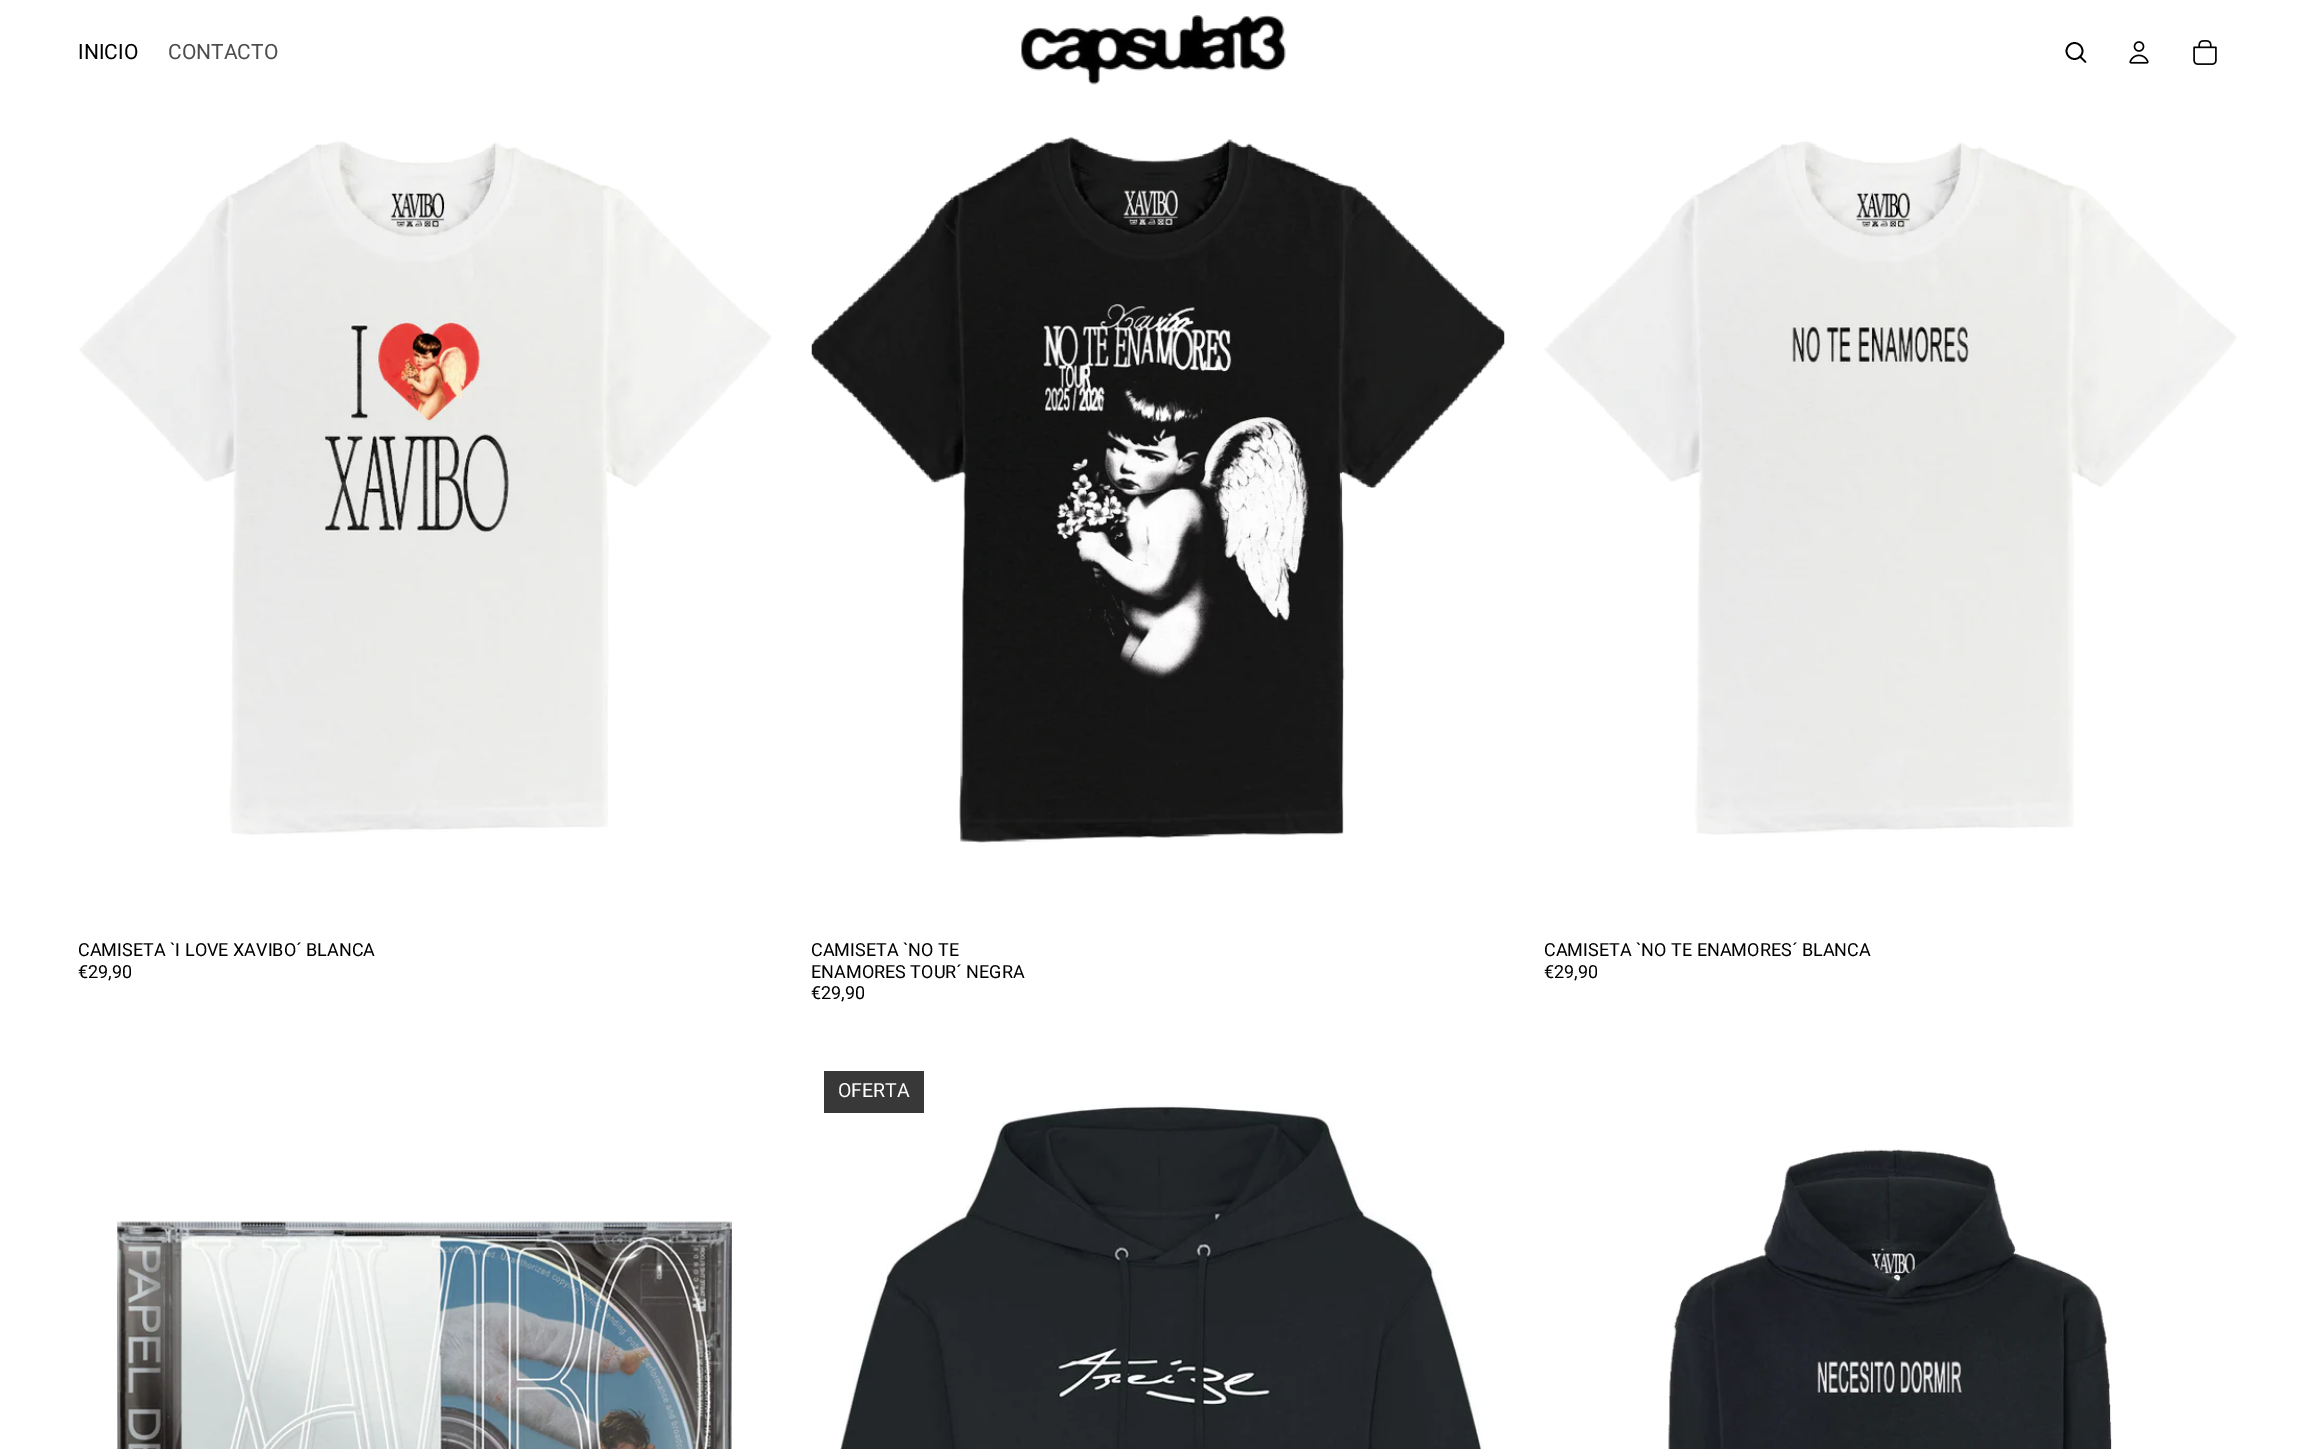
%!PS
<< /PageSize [2315 1449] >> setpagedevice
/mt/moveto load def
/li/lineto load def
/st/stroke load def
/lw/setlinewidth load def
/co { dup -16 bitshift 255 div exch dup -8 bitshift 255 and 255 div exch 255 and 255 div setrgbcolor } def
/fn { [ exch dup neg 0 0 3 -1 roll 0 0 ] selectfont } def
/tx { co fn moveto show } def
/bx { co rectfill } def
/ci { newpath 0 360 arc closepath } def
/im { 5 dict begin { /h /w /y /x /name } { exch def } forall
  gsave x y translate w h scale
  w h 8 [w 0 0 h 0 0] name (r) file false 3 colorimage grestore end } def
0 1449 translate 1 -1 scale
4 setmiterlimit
0 0 2315 1449 16#FFFFFF bx
(media/1.raw) 1021 15 265 70 im
16#000000 co
1.7 lw
2074.5 51 8 ci st
1 setlinecap
1 setlinejoin
2080 56.5 mt 2085.5 62 li st
(media/2.raw) 2129 41 20 23 im
(media/3.raw) 2193 40 24 25 im
(media/4.raw) 79 141 693 694 im
(media/5.raw) 811 136 694 707 im
(media/6.raw) 1544 141 693 694 im
(media/7.raw) 840 1105 643 344 im
824 1071 100 42 16#383838 bx
(media/8.raw) 117 1221 615 228 im
(media/9.raw) 1668 1149 444 300 im
(INICIO) 78 59 /Roboto-Regular 21 16#000000 tx
(CONTACTO) 168 59 /Roboto-Regular 21 16#4D4D4D tx
(CAMISETA `I LOVE XAVIBO´ BLANCA) 78 956 /Roboto-Regular 18 16#000000 tx
(€29,90) 78 978 /Roboto-Regular 18 16#000000 tx
(CAMISETA `NO TE) 811 956 /Roboto-Regular 18 16#000000 tx
(ENAMORES TOUR´ NEGRA) 811 978 /Roboto-Regular 18 16#000000 tx
(€29,90) 811 999 /Roboto-Regular 18 16#000000 tx
(CAMISETA `NO TE ENAMORES´ BLANCA) 1544 956 /Roboto-Regular 18 16#000000 tx
(€29,90) 1544 978 /Roboto-Regular 18 16#000000 tx
(OFERTA) 838 1097 /Roboto-Regular 19.5 16#FFFFFF tx
showpage
